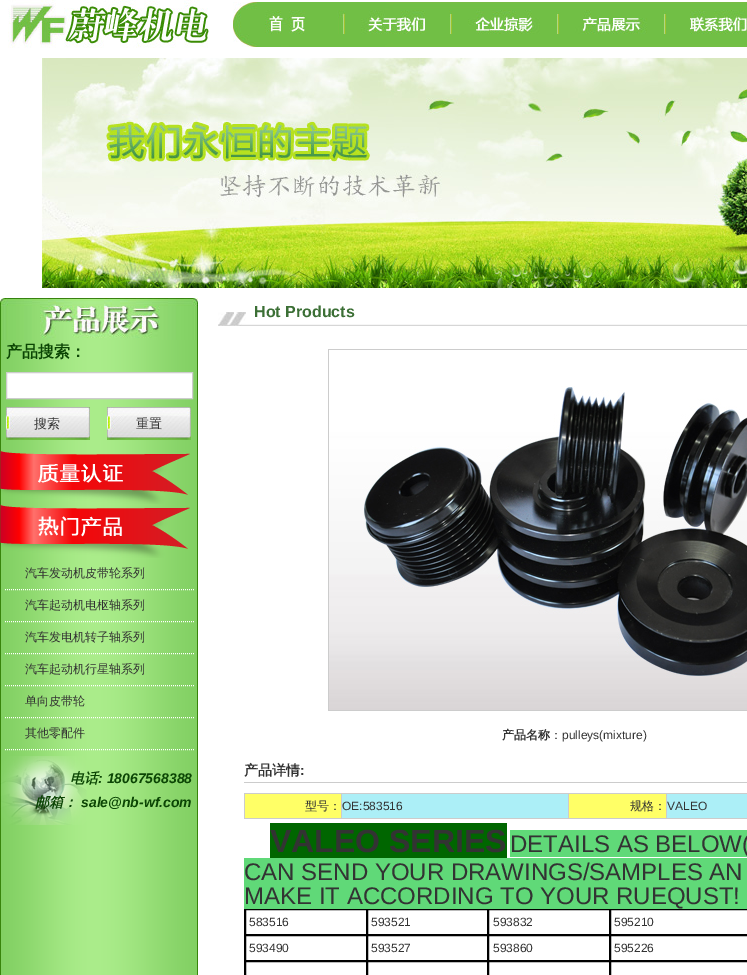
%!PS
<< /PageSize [747 975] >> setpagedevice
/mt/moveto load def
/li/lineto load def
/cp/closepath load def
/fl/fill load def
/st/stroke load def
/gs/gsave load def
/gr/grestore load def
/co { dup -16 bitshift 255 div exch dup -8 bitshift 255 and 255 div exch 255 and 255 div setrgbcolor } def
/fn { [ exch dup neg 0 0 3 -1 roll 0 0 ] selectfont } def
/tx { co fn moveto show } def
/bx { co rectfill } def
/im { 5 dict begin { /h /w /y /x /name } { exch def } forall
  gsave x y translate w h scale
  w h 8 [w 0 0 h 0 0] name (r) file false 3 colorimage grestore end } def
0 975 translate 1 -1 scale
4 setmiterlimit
0 0 747 975 16#FFFFFF bx
(media/1.raw) 8 0 201 48 im
(media/2.raw) 233 2 112 45 im
(media/3.raw) 345 2 107 45 im
(media/4.raw) 452 2 107 45 im
(media/5.raw) 559 2 107 45 im
(media/6.raw) 666 2 81 45 im
(media/7.raw) 42 58 705 230 im
(media/8.raw) 0 340 198 635 im
(media/9.raw) 0 298 198 42 im
6.5 372.5 mt 192.5 372.5 li 192.5 398.5 li 6.5 398.5 li cp gs fl gr
16#CCCCCC co
st
(media/10.raw) 6 407 84 33 im
(media/10.raw) 107 407 84 33 im
(media/11.raw) 0 450 190 54 im
(media/12.raw) 0 504 190 54 im
16#FFFFFF co
[1 1] 0 setdash
5 589.5 mt 194 589.5 li st
5 621.5 mt 194 621.5 li st
5 653.5 mt 194 653.5 li st
5 685.5 mt 194 685.5 li st
5 717.5 mt 194 717.5 li st
5 749.5 mt 194 749.5 li st
(media/13.raw) 0 756 87 69 im
(media/14.raw) 218 312 28 14 im
(media/15.raw) 246 324 303 2 im
(media/16.raw) 549 324 198 2 im
328 349 419 362 16#CCCCCC bx
329 350 418 36 16#FFFFFF bx
(media/17.raw) 329 386 418 324 im
244 782 503 1 16#CCCCCC bx
244 793 503 1 16#CCCCCC bx
244 818 503 1 16#CCCCCC bx
244 793 1 26 16#CCCCCC bx
245 794 96 24 16#FFFF66 bx
342 794 226 24 16#ACEFF7 bx
341 793 1 26 16#CCCCCC bx
569 794 97 24 16#FFFF66 bx
568 793 1 26 16#CCCCCC bx
667 794 80 24 16#ACEFF7 bx
666 793 1 26 16#CCCCCC bx
270 823 237 35 16#006600 bx
510 830 237 27 16#60D978 bx
16#000000 co
[] 0 setdash
244.5 908.5 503 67 rectstroke
244 858 503 51 16#60D978 bx
16#000000 co
245.5 909.5 121 25 rectstroke
367.5 909.5 120 25 rectstroke
488.5 909.5 121 25 rectstroke
610.5 909.5 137 25 rectstroke
245.5 935.5 121 25 rectstroke
367.5 935.5 120 25 rectstroke
488.5 935.5 121 25 rectstroke
610.5 935.5 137 25 rectstroke
245.5 961.5 121 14 rectstroke
367.5 961.5 120 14 rectstroke
488.5 961.5 121 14 rectstroke
610.5 961.5 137 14 rectstroke
(产品搜索：) 6 357 /WenQuanYiZenHei-Bold 16 16#0B4504 tx
(搜索) 34 428 /WenQuanYiZenHei-Medium 13 16#333333 tx
(重置) 136 428 /WenQuanYiZenHei-Medium 13 16#333333 tx
(汽车发动机皮带轮系列) 25 577 /WenQuanYiZenHei-Medium 12 16#333333 tx
(汽车起动机电枢轴系列) 25 609 /WenQuanYiZenHei-Medium 12 16#333333 tx
(汽车发电机转子轴系列) 25 641 /WenQuanYiZenHei-Medium 12 16#333333 tx
(汽车起动机行星轴系列) 25 673 /WenQuanYiZenHei-Medium 12 16#333333 tx
(单向皮带轮) 25 705 /WenQuanYiZenHei-Medium 12 16#333333 tx
(其他零配件) 25 737 /WenQuanYiZenHei-Medium 12 16#333333 tx
(电话) 70 783 /WenQuanYiZenHei-BoldItalic 14 16#0B4504 tx
(: 18067568388) 98 783 /LiberationSans-BoldItalic 14 16#0B4504 tx
(邮箱：) 35 807 /WenQuanYiZenHei-BoldItalic 14 16#0B4504 tx
(sale@nb-wf.com) 81 807 /LiberationSans-BoldItalic 14 16#0B4504 tx
(Hot Products) 254 317 /LiberationSans-Bold 16 16#3B6F35 tx
(产品名称) 502 739 /WenQuanYiZenHei-Bold 12 16#333333 tx
(：) 550 739 /WenQuanYiZenHei-Medium 12 16#333333 tx
(pulleys\(mixture\)) 562 739 /LiberationSans-Regular 12 16#333333 tx
(产品详情) 244 775 /WenQuanYiZenHei-Bold 14 16#333333 tx
(:) 300 775 /LiberationSans-Bold 14 16#333333 tx
(型号：) 305 810 /WenQuanYiZenHei-Medium 12 16#333333 tx
(OE:583516) 342 810 /LiberationSans-Regular 12 16#333333 tx
(规格：) 630 810 /WenQuanYiZenHei-Medium 12 16#333333 tx
(VALEO) 667 810 /LiberationSans-Regular 12 16#333333 tx
(VALEO SERIES) 270 852 /LiberationSans-Bold 32 16#333333 tx
(DETAILS AS BELOW\() 510 852 /LiberationSans-Regular 24 16#333333 tx
(CAN SEND YOUR DRAWINGS/SAMPLES AN) 244 880 /LiberationSans-Regular 24 16#333333 tx
(MAKE IT ACCORDING TO YOUR RUEQUST!) 244 904 /LiberationSans-Regular 24 16#333333 tx
(583516) 249 926 /LiberationSans-Regular 12 16#333333 tx
(593521) 371 926 /LiberationSans-Regular 12 16#333333 tx
(593832) 493 926 /LiberationSans-Regular 12 16#333333 tx
(595210) 614 926 /LiberationSans-Regular 12 16#333333 tx
(593490) 249 952 /LiberationSans-Regular 12 16#333333 tx
(593527) 371 952 /LiberationSans-Regular 12 16#333333 tx
(593860) 493 952 /LiberationSans-Regular 12 16#333333 tx
(595226) 614 952 /LiberationSans-Regular 12 16#333333 tx
showpage
